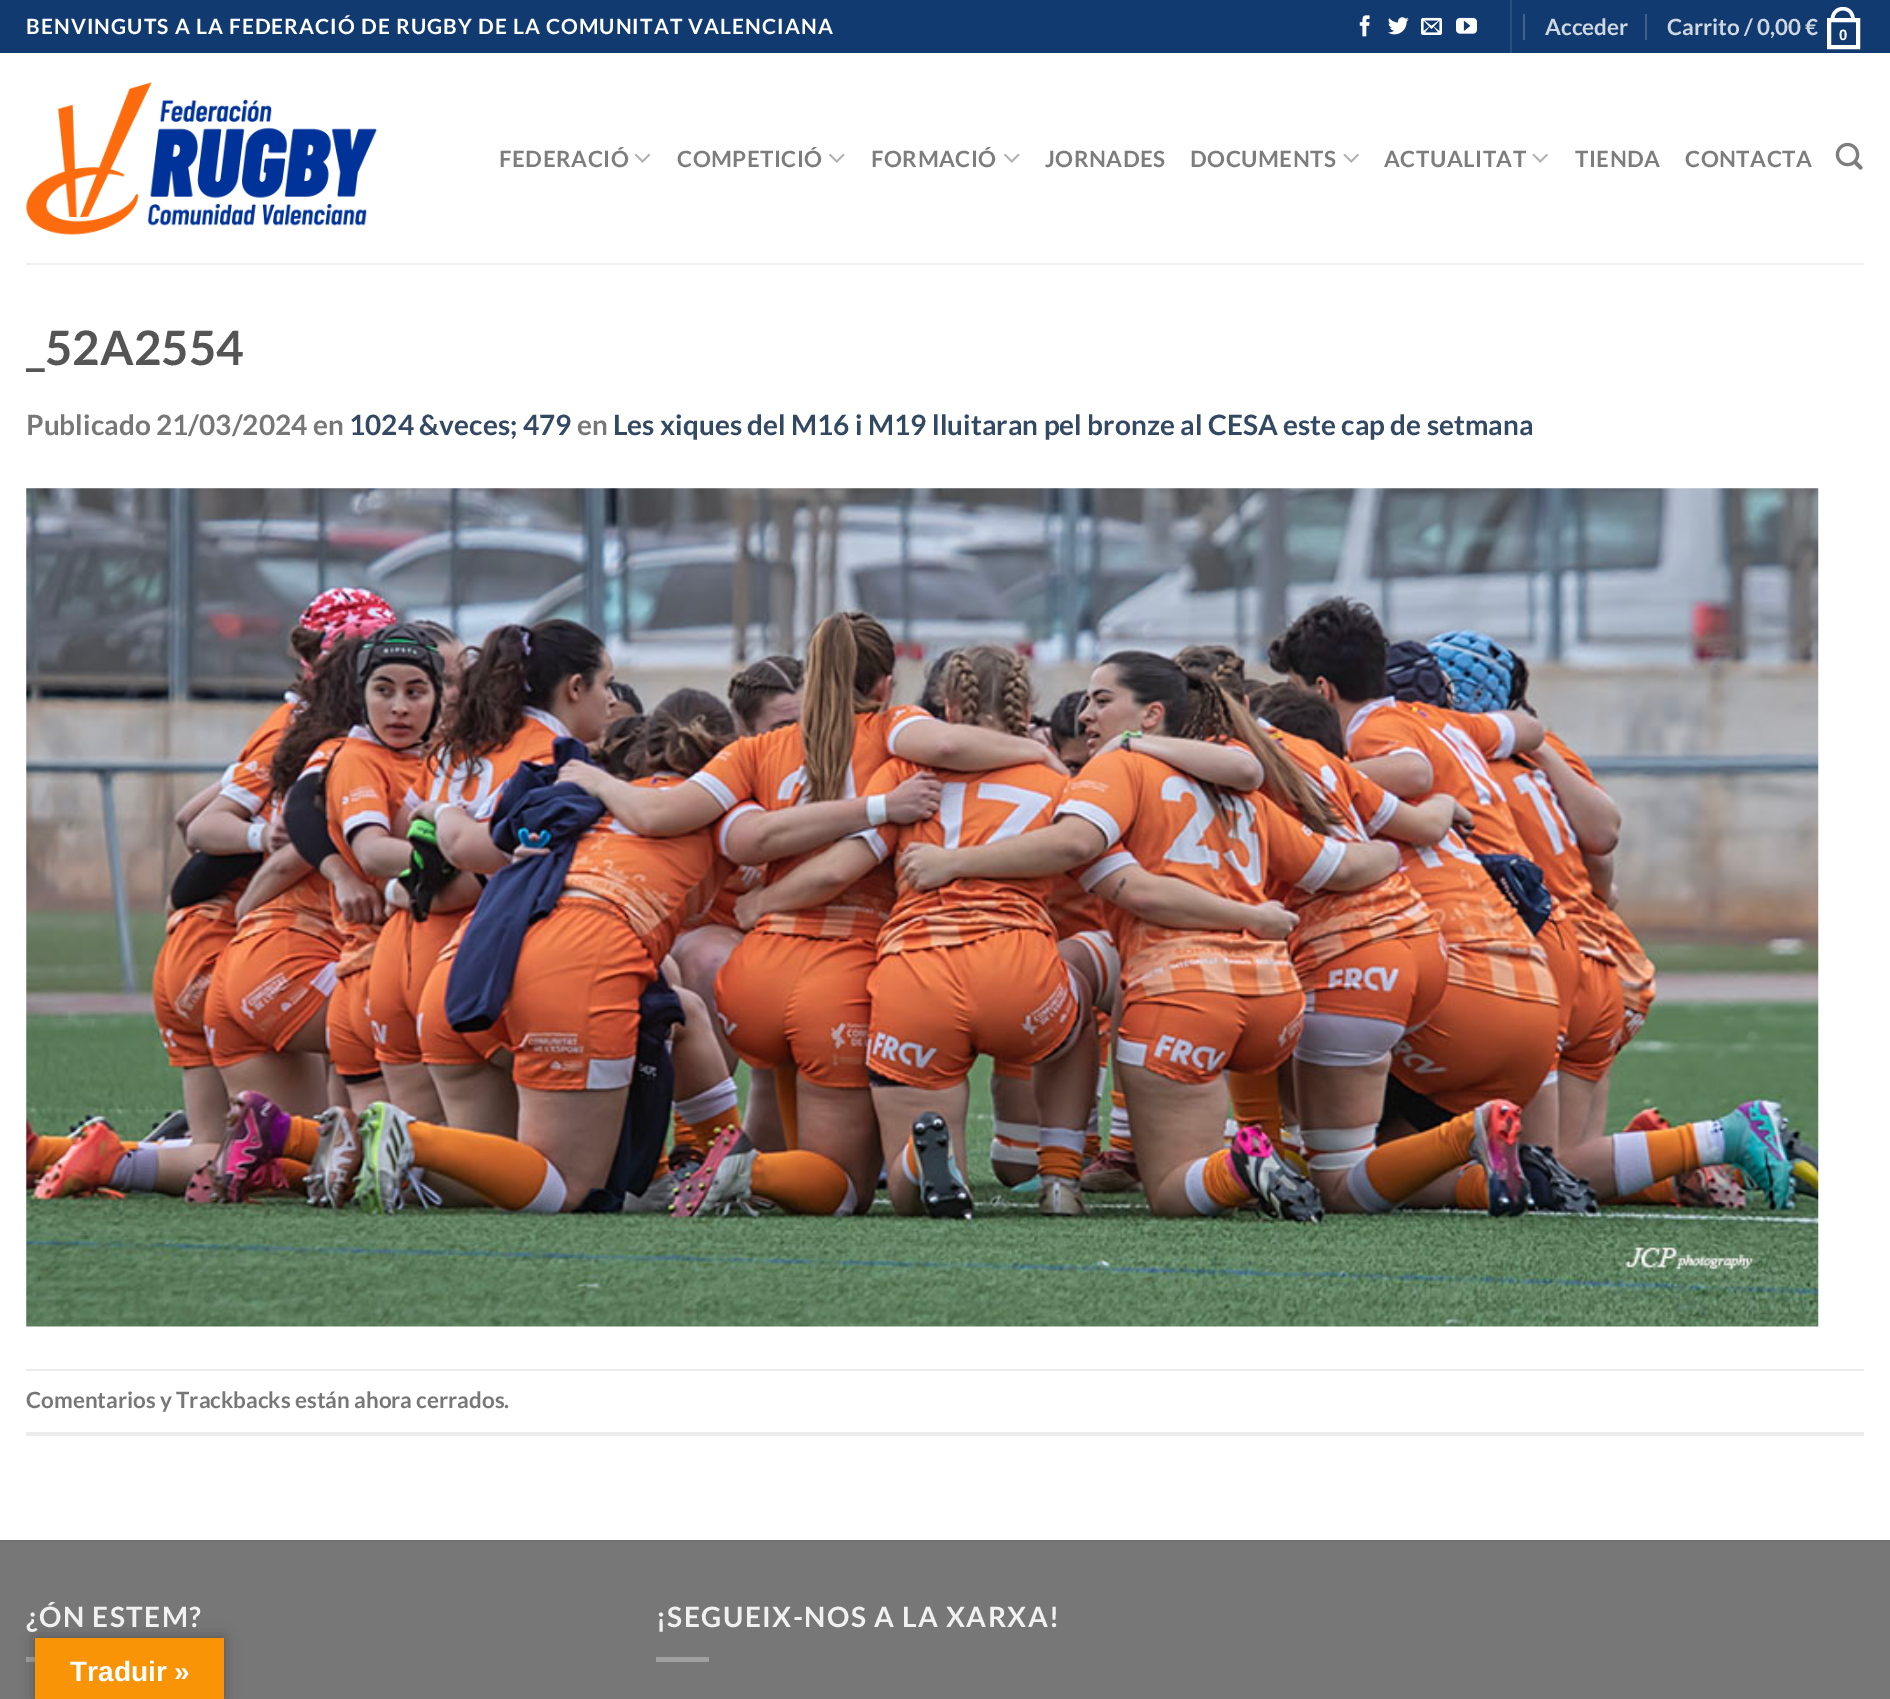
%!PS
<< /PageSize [1890 1699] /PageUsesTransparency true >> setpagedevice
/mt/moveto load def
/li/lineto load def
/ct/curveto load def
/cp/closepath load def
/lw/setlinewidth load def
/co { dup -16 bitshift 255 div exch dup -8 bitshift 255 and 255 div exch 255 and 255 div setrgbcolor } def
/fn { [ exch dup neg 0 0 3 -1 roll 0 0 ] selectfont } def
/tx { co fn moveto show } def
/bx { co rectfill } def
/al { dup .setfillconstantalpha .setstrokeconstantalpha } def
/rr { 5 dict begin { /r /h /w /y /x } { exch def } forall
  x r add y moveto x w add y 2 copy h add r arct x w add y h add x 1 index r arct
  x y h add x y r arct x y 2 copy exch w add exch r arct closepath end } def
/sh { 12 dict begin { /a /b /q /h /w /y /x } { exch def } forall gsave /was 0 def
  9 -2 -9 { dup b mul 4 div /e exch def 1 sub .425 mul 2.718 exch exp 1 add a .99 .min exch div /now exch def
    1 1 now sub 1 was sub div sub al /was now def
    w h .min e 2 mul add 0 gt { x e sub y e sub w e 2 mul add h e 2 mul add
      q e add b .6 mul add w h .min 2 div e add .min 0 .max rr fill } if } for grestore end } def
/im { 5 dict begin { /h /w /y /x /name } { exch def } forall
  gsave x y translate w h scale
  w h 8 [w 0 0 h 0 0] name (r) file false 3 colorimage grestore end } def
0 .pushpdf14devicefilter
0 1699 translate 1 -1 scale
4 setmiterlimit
0 0 1890 1699 16#FFFFFF bx
0 0 1890 53 16#113A70 bx
(media/1.raw) 1359 15 11 22 im
(media/2.raw) 1388 17 21 18 im
(media/3.raw) 1421 17 21 18 im
(media/4.raw) 1456 17 21 17 im
1510 0 2 53 16#294E7E bx
1523 14 2 26 16#41618D bx
1645 14 2 26 16#41618D bx
16#FFFFFF co
4 lw
1829 20 29 27 rectstroke
1843 7 mt 1851 7 1855 13.5 1855 21 ct 1830.5 21 li 1830.5 13.5 1834.5 7 1843 7 ct cp 1843 10.5 mt 1849 10.5 1851.5 15.5 1851.5 21 ct 1834 21 li 1834 15.5 1836.5 10.5 1843 10.5 ct cp eofill
(media/5.raw) 26 82 351 153 im
(media/6.raw) 634 153 17 10 im
(media/7.raw) 829 153 16 10 im
(media/7.raw) 1004 153 16 10 im
(media/8.raw) 1343 153 16 10 im
(media/8.raw) 1532 153 16 10 im
(media/9.raw) 1835 142 28 28 im
26 263 1838 2 16#F1F1F1 bx
(media/10.raw) 26 488 1793 839 im
26 1369 1838 2 16#ECECEC bx
26 1432 1838 4 16#ECECEC bx
0 1542 1890 157 16#777777 bx
0 1540 1890 2 16#717171 bx
26 1657 9 5 16#A0A0A0 bx
656 1657 53 5 16#A0A0A0 bx
16#000000 co
35 1638 189 61 0 8 .3 sh
35 1638 189 61 16#F89406 bx
/Lato-Bold 21 fn
16#FFFFFF co
26 34 mt 1.05 0 (BENVINGUTS A LA FEDERACIÓ DE RUGBY DE LA COMUNITAT VALENCIANA) ashow
(Acceder) 1545 35 /Lato-Bold 22.4 16#CFD8E2 tx
(Carrito / 0,00 €) 1667 35 /Lato-Bold 22.4 16#CFD8E2 tx
(0) 1839 40 /LiberationSans-Bold 15 16#FFFFFF tx
/Lato-Bold 22.4 fn
16#7D7D7D co
499 167 mt .5 0 (FEDERACIÓ) ashow
677 167 mt .5 0 (COMPETICIÓ) ashow
871 167 mt .5 0 (FORMACIÓ) ashow
1045 167 mt .5 0 (JORNADES) ashow
1190 167 mt .5 0 (DOCUMENTS) ashow
1384 167 mt .5 0 (ACTUALITAT) ashow
1575 167 mt .5 0 (TIENDA) ashow
1685 167 mt .5 0 (CONTACTA) ashow
(_52A2554) 26 365 /Lato-Bold 47.5 16#555555 tx
(Publicado 21/03/2024 en) 26 435 /Lato-Bold 28 16#777777 tx
(1024 &veces; 479) 349 435 /Lato-Bold 28 16#334862 tx
(en) 577 435 /Lato-Bold 28 16#777777 tx
(Les xiques del M16 i M19 lluitaran pel bronze al CESA este cap de setmana) 613 435 /Lato-Bold 28 16#334862 tx
(Comentarios y Trackbacks están ahora cerrados.) 26 1408 /Lato-Bold 22.4 16#777777 tx
/Lato-Bold 28 fn
16#F1F1F1 co
26 1627 mt 1.4 0 (¿ÓN ESTEM?) ashow
656 1627 mt 1.4 0 (¡SEGUEIX-NOS A LA XARXA!) ashow
(Traduir ») 70 1681 /LiberationSans-Bold 28 16#FFFFFF tx
.poppdf14devicefilter showpage
